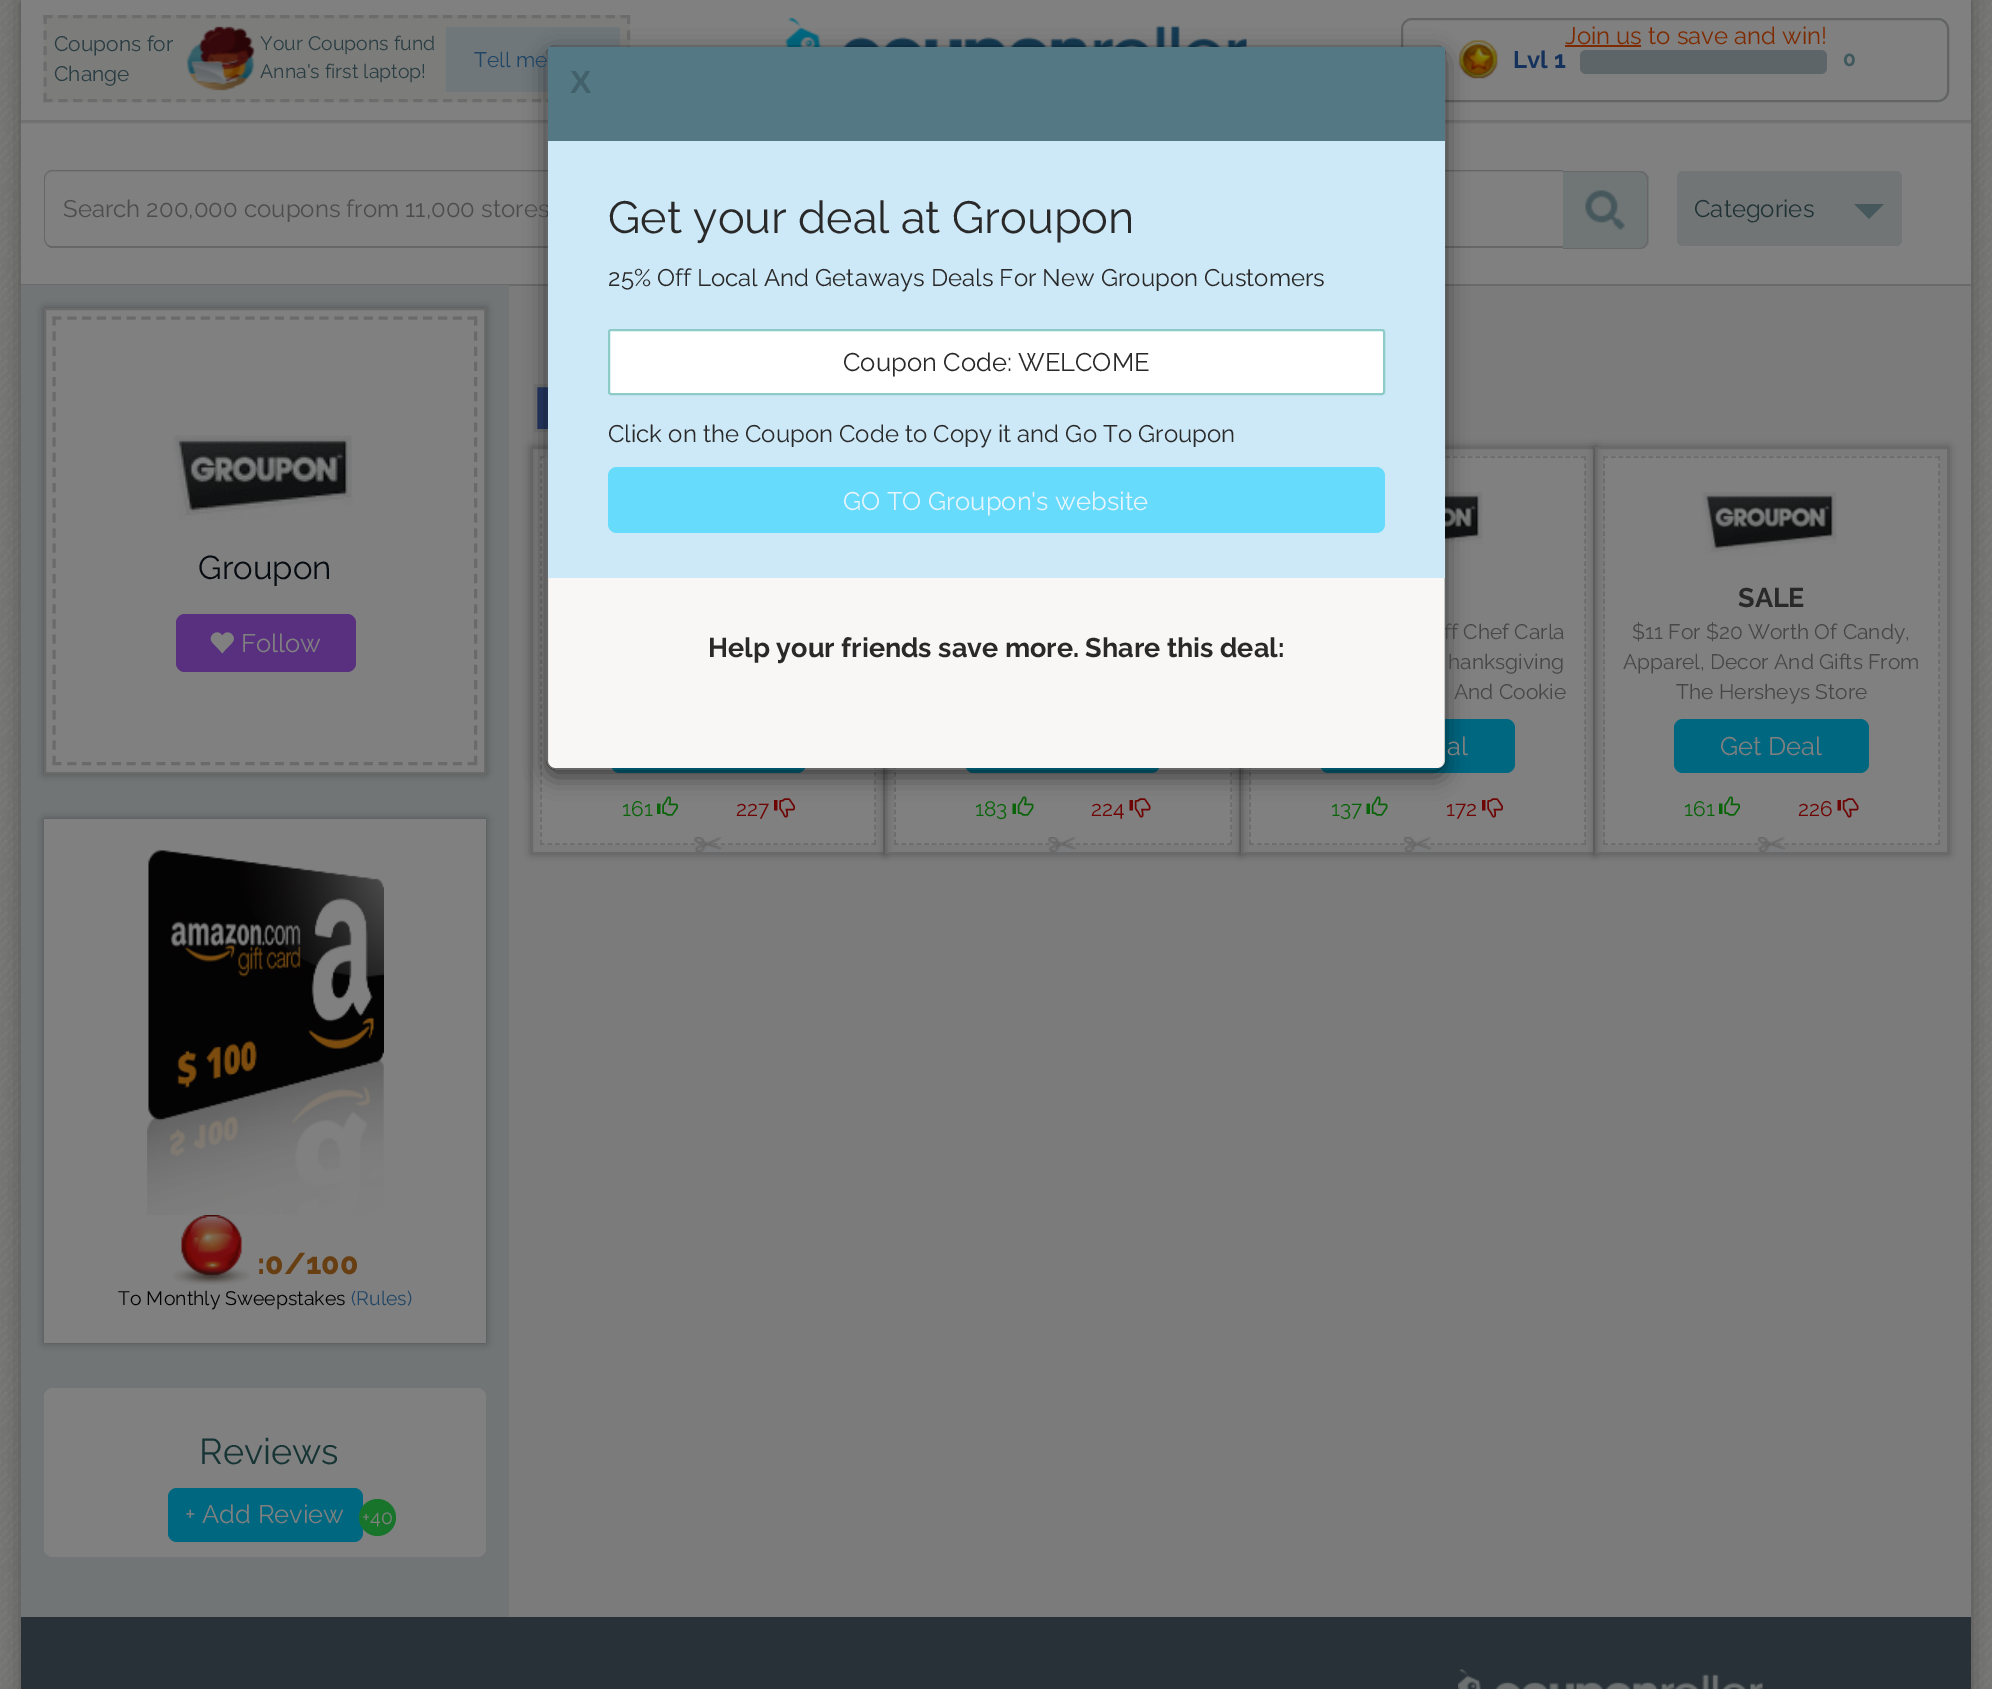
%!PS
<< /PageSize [1992 1689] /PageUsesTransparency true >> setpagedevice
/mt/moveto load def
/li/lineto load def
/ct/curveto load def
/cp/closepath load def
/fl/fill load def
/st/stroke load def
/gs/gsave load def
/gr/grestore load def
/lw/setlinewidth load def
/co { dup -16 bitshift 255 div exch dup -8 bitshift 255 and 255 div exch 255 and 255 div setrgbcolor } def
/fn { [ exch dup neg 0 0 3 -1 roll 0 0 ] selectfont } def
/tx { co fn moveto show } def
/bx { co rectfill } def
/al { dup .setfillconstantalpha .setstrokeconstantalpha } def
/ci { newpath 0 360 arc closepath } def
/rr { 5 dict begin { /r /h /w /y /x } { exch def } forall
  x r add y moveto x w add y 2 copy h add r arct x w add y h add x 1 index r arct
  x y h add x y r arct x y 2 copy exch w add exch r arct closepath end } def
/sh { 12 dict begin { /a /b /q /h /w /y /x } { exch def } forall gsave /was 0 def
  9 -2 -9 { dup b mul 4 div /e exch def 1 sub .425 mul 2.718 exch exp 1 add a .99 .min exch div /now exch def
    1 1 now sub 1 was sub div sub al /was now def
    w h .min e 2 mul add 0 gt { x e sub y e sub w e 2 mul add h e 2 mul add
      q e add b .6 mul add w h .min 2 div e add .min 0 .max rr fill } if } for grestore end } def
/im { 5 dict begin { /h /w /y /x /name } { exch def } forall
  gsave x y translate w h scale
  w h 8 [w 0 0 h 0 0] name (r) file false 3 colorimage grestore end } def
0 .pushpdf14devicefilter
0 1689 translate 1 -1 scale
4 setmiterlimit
0 0 1992 1689 16#FFFFFF bx
(media/1.raw) 0 0 1992 1689 im
16#2E2E2E co
21 0 1950 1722 0 11 .5 sh
21 120 1950 164 16#808080 bx
16#0A0A0A co
21 3 1950 120 0 1 .15 sh
21 0 1950 120 16#808080 bx
44 15 586 87 16#7C7C7B bx
16#6C6C6C co
3 lw
[9 5.8] 0 setdash
43.5 16.5 mt 630 16.5 li st
[9 6.6] 0 setdash
628.5 15 mt 628.5 102 li st
[9 5.8] 0 setdash
43.5 100.5 mt 630 100.5 li st
[9 6.6] 0 setdash
45 15 mt 45 102 li st
(media/2.raw) 186 26 69 65 im
446 27 174 65 16#6F777A bx
(media/3.raw) 785 18 462 29 im
16#626363 co
2 lw
[] 0 setdash
1402 19 546 82 10 rr st
1565 45 76 2 16#7E2A00 bx
(media/4.raw) 1458 40 40 39 im
16#5E6569 co
1580 50 247 24 6 rr fl
509 286 1462 1331 16#7B7B7C bx
21 284 1950 2 16#6A6A6A bx
16#767676 co
52 172 mt 1563 172 li 1563 171 li 53 171 li 48 171 45 175 45 180 ct 45 176 48 172 52 172 ct cp fl
16#676767 co
52 170 mt 1563 170 li 1563 248 li 52 248 li 48 248 44 243 44 238 ct 44 178 li 44 174 48 170 52 170 ct cp 52 171 mt 1563 171 li 1563 246 li 52 246 li 48 246 45 243 45 238 ct 45 178 li 45 174 48 171 52 171 ct cp eofill
537 387 11 42 16#273865 bx
16#737373 co
3 lw
535.5 385.5 116 45 rectstroke
gs
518 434 mt 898 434 li 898 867 li 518 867 li cp 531 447 mt 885 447 li 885 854 li 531 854 li cp eoclip newpath
16#0A0A0A co
531 447 354 407 0 4 .34 sh
gr
16#6A6A6A co
2 lw
532 448 352 405 rectstroke
540 456 336 389 16#808080 bx
16#6B6B6B co
1.5 lw
[4.5 3.03] 0 setdash
540 457 mt 876 457 li st
875 456 mt 875 844.5 li st
540 844 mt 876 844 li st
541 456 mt 541 844.5 li st
16#006780 co
611 719 195 54 9 rr fl
(media/10.raw) 657 796 21 20 im
(media/11.raw) 774 798 21 20 im
gs
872 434 mt 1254 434 li 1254 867 li 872 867 li cp 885 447 mt 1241 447 li 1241 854 li 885 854 li cp eoclip newpath
16#0A0A0A co
885 447 356 407 0 4 .34 sh
gr
16#6A6A6A co
2 lw
[] 0 setdash
886 448 354 405 rectstroke
894 768 338 77 16#808080 bx
16#6B6B6B co
1.5 lw
[4.5 3.03] 0 setdash
1231 456 mt 1231 844.5 li st
[4.5 3.07] 0 setdash
894 844 mt 1231.5 844 li st
[4.5 3.03] 0 setdash
895 456 mt 895 844.5 li st
16#006780 co
965 719 195 54 9 rr fl
(media/13.raw) 1012 796 22 20 im
(media/14.raw) 1129 798 22 20 im
gs
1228 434 mt 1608 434 li 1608 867 li 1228 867 li cp 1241 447 mt 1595 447 li 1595 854 li 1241 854 li cp eoclip newpath
16#0A0A0A co
1241 447 354 407 0 4 .34 sh
gr
16#6A6A6A co
2 lw
[] 0 setdash
1242 448 352 405 rectstroke
1250 456 336 389 16#808080 bx
16#6B6B6B co
1.5 lw
[4.5 3.03] 0 setdash
1249.5 457 mt 1585.5 457 li st
1585 456 mt 1585 844.5 li st
1249.5 844 mt 1585.5 844 li st
1250 456 mt 1250 844.5 li st
(media/16.raw) 1445 492 38 63 im
16#006780 co
1320 719 195 54 9 rr fl
(media/13.raw) 1366 796 22 20 im
gs
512 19 mt 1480 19 li 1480 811 li 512 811 li cp 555 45 mt 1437 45 li 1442 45 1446 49 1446 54 ct 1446 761 li 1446 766 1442 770 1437 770 ct 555 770 li 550 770 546 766 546 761 ct 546 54 li 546 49 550 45 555 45 ct cp eoclip newpath
16#000000 co
546 53 900 724 9 11 .5 sh
gr
16#707576 co
1563 171 mt 1640 171 li 1645 171 1649 175 1649 180 ct 1649 240 li 1649 245 1645 249 1640 249 ct 1563 249 li cp fl
(media/5.raw) 1585 190 40 40 im
16#676767 co
1563 171 mt 1640 171 li 1644 171 1648 175 1648 180 ct 1648 240 li 1648 245 1644 249 1640 249 ct 1563 249 li cp 1563 172 mt 1640 172 li 1644 172 1647 176 1647 180 ct 1647 240 li 1647 244 1644 248 1640 248 ct 1563 248 li cp eofill
16#727575 co
1677 171 225 75 6 rr fl
16#46585C co
1854 204 mt 1884 204 li 1869 219 li cp fl
21 285 488 1332 16#727575 bx
16#0A0A0A co
44 308 442 466 0 4 .34 sh
16#808080 co
45 309 mt 485 309 li 485 773 li 45 773 li cp gs fl gr
16#6A6A6A co
2 lw
[] 0 setdash
st
3 lw
[9 5.83] 0 setdash
52.5 318 mt 477 318 li st
[9 6.15] 0 setdash
475.5 316.5 mt 475.5 765 li st
[9 5.83] 0 setdash
52.5 763.5 mt 477 763.5 li st
[9 6.15] 0 setdash
54 316.5 mt 54 765 li st
(media/6.raw) 173 435 180 85 im
16#593080 co
176 614 180 58 9 rr fl
(media/7.raw) 210 632 24 22 im
16#0A0A0A co
44 819 442 524 0 4 .34 sh
44 819 442 524 16#808080 bx
(media/8.raw) 147 849 237 366 im
(media/9.raw) 173 1215 77 70 im
44 1388 442 169 9 rr fl
16#006780 co
168 1488 195 54 9 rr fl
16#18742B co
377.5 1517.5 18.5 ci fl
(media/12.raw) 694 837 28 15 im
(media/15.raw) 1048 837 28 15 im
(media/11.raw) 1482 798 21 20 im
(media/17.raw) 1404 837 27 15 im
gs
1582 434 mt 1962 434 li 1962 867 li 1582 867 li cp 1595 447 mt 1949 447 li 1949 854 li 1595 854 li cp eoclip newpath
16#0A0A0A co
1595 447 354 407 0 4 .34 sh
gr
16#6A6A6A co
2 lw
[] 0 setdash
1596 448 352 405 rectstroke
1604 456 336 389 16#808080 bx
16#6B6B6B co
1.5 lw
[4.5 3.03] 0 setdash
1603.5 457 mt 1939.5 457 li st
1939 456 mt 1939 844.5 li st
1603.5 844 mt 1939.5 844 li st
1604 456 mt 1604 844.5 li st
(media/18.raw) 1702 492 135 63 im
16#006780 co
1674 719 195 54 9 rr fl
(media/10.raw) 1719 796 21 20 im
(media/14.raw) 1837 798 22 20 im
(media/17.raw) 1758 837 27 15 im
21 1617 1950 72 16#283137 bx
(media/19.raw) 1458 1669 305 20 im
(Coupons for) 54 51 /Raleway-Regular 21 16#2A3D42 tx
(Change) 54 81 /Raleway-Regular 21 16#2A3D42 tx
(Your Coupons fund) 260 50 /Raleway-Regular 19.5 16#2A3D42 tx
(Anna's first laptop!) 260 78 /Raleway-Regular 19.5 16#2A3D42 tx
(Tell me) 474 67 /Raleway-Regular 21 16#214665 tx
(Join us to save and win!) 1565 44 /Raleway-Regular 24 16#7E2A00 tx
(Lvl 1) 1513 68 /Raleway-Bold 24 16#15325D tx
(0) 1843 66 /Raleway-Bold 21 16#3F585B tx
(Search 200,000 coupons from 11,000 stores) 63 217 /Raleway-Regular 24 16#4D4D4D tx
(Categories) 1694 217 /Raleway-Regular 24 16#213337 tx
(Groupon) 198 579 /Raleway-Regular 33 16#060B11 tx
(Follow) 241 652 /Raleway-Regular 25.5 16#808080 tx
(:0/100) 257 1274 /Raleway-ExtraBold 30 16#673F13 tx
(To Monthly Sweepstakes) 118 1305 /Raleway-Regular 19.5 16#040304 tx
(\(Rules\)) 351 1305 /Raleway-Regular 19.5 16#214665 tx
(Reviews) 199 1464 /Raleway-Regular 36 16#163433 tx
(+ Add Review) 185 1523 /Raleway-Regular 25.5 16#808080 tx
(+40) 362 1524 /Raleway-Regular 19.5 16#808080 tx
(161) 622 816 /Raleway-Regular 21 16#096409 tx
(227) 736 816 /Raleway-Regular 21 16#6F0505 tx
(183) 975 816 /Raleway-Regular 21 16#096409 tx
(224) 1091 816 /Raleway-Regular 21 16#6F0505 tx
(ff Chef Carla) 1444 639 /Raleway-Regular 21 16#474747 tx
16#F8F7F5 co
548 47 897 721 8 rr fl
0.2 al
16#000000 co
2 lw
[] 0 setdash
547 46 898 723 8 rr st
1 al
548 141 897 437 16#CDE8F6 bx
16#67DBFB co
608 467 777 66 9 rr fl
(GO TO Groupon's website) 843 510 /Raleway-Regular 25.5 16#E6F4FB tx
(Click on the Coupon Code to Copy it and Go To Groupon) 608 442 /Raleway-Regular 24 16#292929 tx
16#FFFFFF co
609 330 775 64 2 rr gs fl gr
16#8CCBC8 co
st
(Coupon Code: WELCOME) 843 371 /Raleway-Regular 25.5 16#292929 tx
(25% Off Local And Getaways Deals For New Groupon Customers) 608 286 /Raleway-Regular 24 16#292929 tx
(Get your deal at Groupon) 608 233 /Raleway-Regular 45 16#292929 tx
548 47 897 94 16#547984 bx
(X) 570 93 /LiberationSans-Bold 32 16#43616A tx
(Help your friends save more. Share this deal:) 708 657 /Raleway-Bold 27 16#292929 tx
(hanksgiving) 1448 669 /Raleway-Regular 21 16#474747 tx
(And Cookie) 1454 699 /Raleway-Regular 21 16#474747 tx
(al) 1447 755 /Raleway-Regular 25.5 16#808080 tx
(137) 1331 816 /Raleway-Regular 21 16#096409 tx
(172) 1446 816 /Raleway-Regular 21 16#6F0505 tx
(SALE) 1738 607 /Raleway-Bold 27 16#292929 tx
($11 For $20 Worth Of Candy,) 1632 639 /Raleway-Regular 21 16#474747 tx
(Apparel, Decor And Gifts From) 1623 669 /Raleway-Regular 21 16#474747 tx
(The Hersheys Store) 1676 699 /Raleway-Regular 21 16#474747 tx
(Get Deal) 1720 755 /Raleway-Regular 25.5 16#808080 tx
(161) 1684 816 /Raleway-Regular 21 16#096409 tx
(226) 1798 816 /Raleway-Regular 21 16#6F0505 tx
.poppdf14devicefilter showpage
